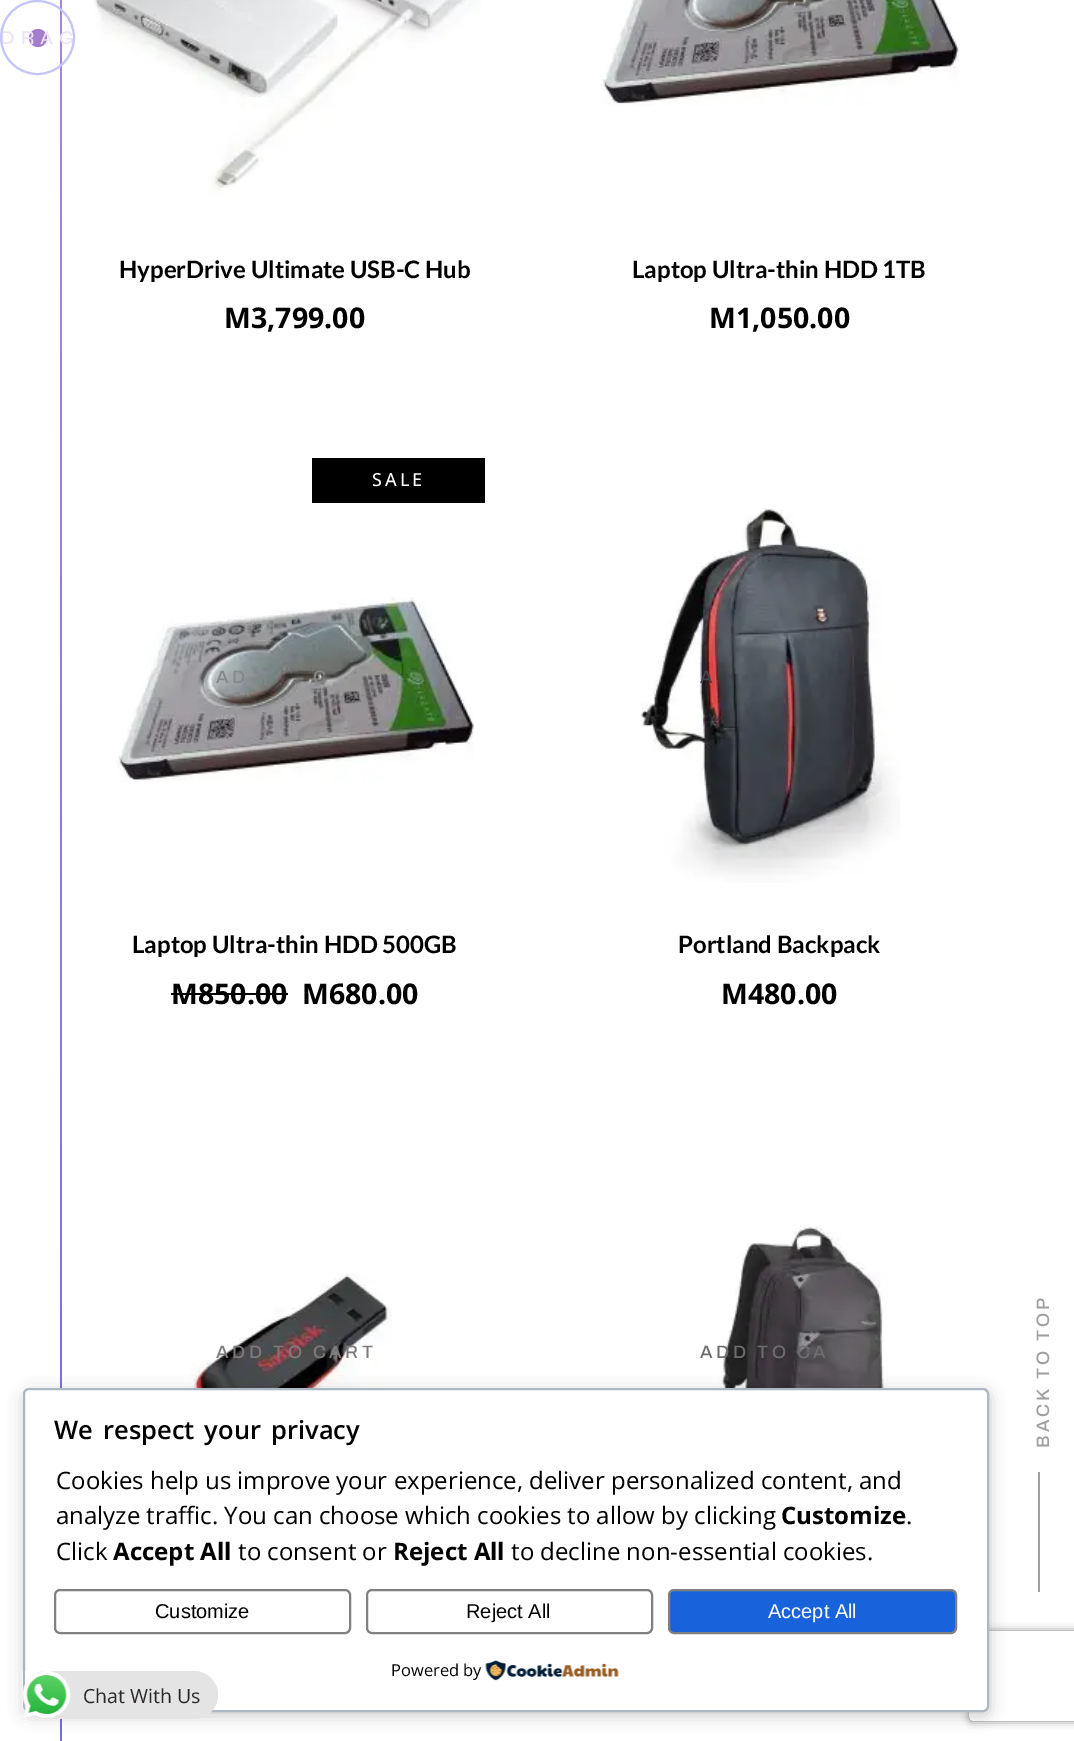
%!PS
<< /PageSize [1074 1741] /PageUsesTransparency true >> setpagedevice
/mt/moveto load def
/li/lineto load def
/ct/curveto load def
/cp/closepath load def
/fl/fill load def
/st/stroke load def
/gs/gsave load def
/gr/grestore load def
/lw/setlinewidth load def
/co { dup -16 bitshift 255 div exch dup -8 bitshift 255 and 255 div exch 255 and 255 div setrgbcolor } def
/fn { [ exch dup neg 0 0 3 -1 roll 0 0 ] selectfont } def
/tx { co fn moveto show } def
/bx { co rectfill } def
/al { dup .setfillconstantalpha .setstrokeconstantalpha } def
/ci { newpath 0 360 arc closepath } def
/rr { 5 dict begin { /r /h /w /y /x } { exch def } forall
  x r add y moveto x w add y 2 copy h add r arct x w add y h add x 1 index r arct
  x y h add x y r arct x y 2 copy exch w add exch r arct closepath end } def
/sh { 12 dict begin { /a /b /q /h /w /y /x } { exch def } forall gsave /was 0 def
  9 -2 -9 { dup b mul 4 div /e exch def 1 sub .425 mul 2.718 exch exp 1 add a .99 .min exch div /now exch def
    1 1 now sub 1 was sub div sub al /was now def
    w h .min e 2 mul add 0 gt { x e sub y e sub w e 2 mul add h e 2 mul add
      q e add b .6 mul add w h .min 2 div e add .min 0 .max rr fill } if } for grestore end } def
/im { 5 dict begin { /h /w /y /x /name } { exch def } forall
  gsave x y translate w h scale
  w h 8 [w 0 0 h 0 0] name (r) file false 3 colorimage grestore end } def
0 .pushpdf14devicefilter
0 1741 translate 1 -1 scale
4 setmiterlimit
0 0 1074 1741 16#FFFFFF bx
16#A47DCD co
38 38 9 ci fl
gs 60 0 mt 62 0 li 62 1741 li 60 1741 li cp clip newpath
<< /ShadingType 2 /ColorSpace /DeviceRGB /Coords [-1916 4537 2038 583] /Extend [true true] /Function << /FunctionType 3 /Domain [0 1] /Functions [<< /FunctionType 2 /Domain [0 1] /C0 [.361 .765 .933] /C1 [.365 .569 .937] /N 1 >> << /FunctionType 2 /Domain [0 1] /C0 [.365 .569 .937] /C1 [.369 .369 .941] /N 1 >> << /FunctionType 2 /Domain [0 1] /C0 [.369 .369 .941] /C1 [.58 .482 .882] /N 1 >> << /FunctionType 2 /Domain [0 1] /C0 [.58 .482 .882] /C1 [.792 .592 .824] /N 1 >>] /Bounds [.29 .5 .73] /Encode [0 1 0 1 0 1 0 1] >> >> shfill gr
(media/1.raw) 93 0 388 197 im
(media/2.raw) 600 0 359 106 im
312 458 173 45 16#000000 bx
(media/3.raw) 116 597 358 185 im
171 993 117 2 16#000000 bx
(media/4.raw) 641 508 259 375 im
(media/5.raw) 189 1273 203 115 im
(media/6.raw) 665 1225 223 163 im
1038 1472 2 120 16#9F9F9F bx
16#000000 co
24 1392 966 324 6 7.5 .2 sh
gs
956 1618 mt 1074 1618 li 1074 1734 li 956 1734 li cp 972 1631 mt 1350 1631 li 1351.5 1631 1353 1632.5 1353 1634 ct 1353 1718 li 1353 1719.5 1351.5 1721 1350 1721 ct 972 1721 li 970.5 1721 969 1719.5 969 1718 ct 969 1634 li 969 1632.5 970.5 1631 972 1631 ct cp eoclip newpath
16#808080 co
969 1631 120 90 3 4 1 sh
gr
16#FFFFFF co
24 1389 964 322 5 rr gs fl gr
16#ABB8C3 co
2 lw
st
16#808080 co
55 1590 295 43 5 rr st
367 1590 285 43 5 rr st
16#1863DC co
669 1590 287 43 5 rr gs fl gr
16#808080 co
st
(media/7.raw) 485 1660 134 21 im
16#E4E4E4 co
23 1671 195 48 24 rr fl
(media/8.raw) 22 1671 49 48 im
/Syne-Medium 19.5 fn
16#EBE2F4 co
0 44 mt 6 0 (DRAG) ashow
16#C3C4F9 co
37.5 37.5 36.5 ci st
(HyperDrive Ultimate USB-C Hub) 119 278 /Lato-Bold 24 16#000000 tx
(M3,799.00) 224 328 /OpenSans-Bold 28.5 16#000000 tx
(Laptop Ultra-thin HDD 1TB) 632 278 /Lato-Bold 24 16#000000 tx
(M1,050.00) 709 328 /OpenSans-Bold 28.5 16#000000 tx
/OpenSans-Medium 18 fn
16#FFFFFF co
372 486 mt 3 0 (SALE) ashow
/Archivo-Medium 18 fn
16#858888 co
216 683 mt 3.6 0 (AD) ashow
313 683 mt 3.6 0 (C) ashow
(Laptop Ultra-thin HDD 500GB) 132 953 /Lato-Bold 24 16#000000 tx
(M850.00) 171 1004 /OpenSans-Bold 28.5 16#000000 tx
(M680.00) 302 1004 /OpenSans-Bold 28.5 16#000000 tx
/Archivo-Medium 18 fn
16#47454B co
700 683 mt 3.6 0 (A) ashow
(Portland Backpack) 678 953 /Lato-Bold 24 16#000000 tx
(M480.00) 721 1004 /OpenSans-Bold 28.5 16#000000 tx
/Archivo-Medium 18 fn
16#7F797B co
216 1358 mt 3.6 0 (ADD TO CART) ashow
16#6E6C6F co
700 1358 mt 3.6 0 (ADD TO CA) ashow
16#9F9F9F co
gs 1049 1448 translate -90 rotate 0 0 mt 3 0 (BACK TO TOP) ashow gr
/OpenSans-SemiBold 25.5 fn
16#000000 co
54 1439 mt 3.5 0 32 (We respect your privacy) widthshow
(Cookies help us improve your experience, deliver personalized content, and) 56 1489 /OpenSans-Regular 24 16#000000 tx
(analyze traffic. You can choose which cookies to allow by clicking) 56 1524 /OpenSans-Regular 24 16#000000 tx
(Customize) 781 1524 /OpenSans-Bold 24 16#000000 tx
(.) 906 1524 /OpenSans-Regular 24 16#000000 tx
(Click) 56 1560 /OpenSans-Regular 24 16#000000 tx
(Accept All) 113 1560 /OpenSans-Bold 24 16#000000 tx
(to consent or) 238 1560 /OpenSans-Regular 24 16#000000 tx
(Reject All) 393 1560 /OpenSans-Bold 24 16#000000 tx
(to decline non-essential cookies.) 511 1560 /OpenSans-Regular 24 16#000000 tx
(Customize) 155 1618 /LiberationSans-Regular 20 16#000000 tx
(Reject All) 466 1618 /LiberationSans-Regular 20 16#000000 tx
(Accept All) 768 1618 /LiberationSans-Regular 20 16#FFFFFF tx
(Powered by) 391 1676 /OpenSans-Regular 16.5 16#000000 tx
(Chat With Us) 83 1703 /OpenSans-Regular 19.5 16#2B2727 tx
.poppdf14devicefilter showpage
